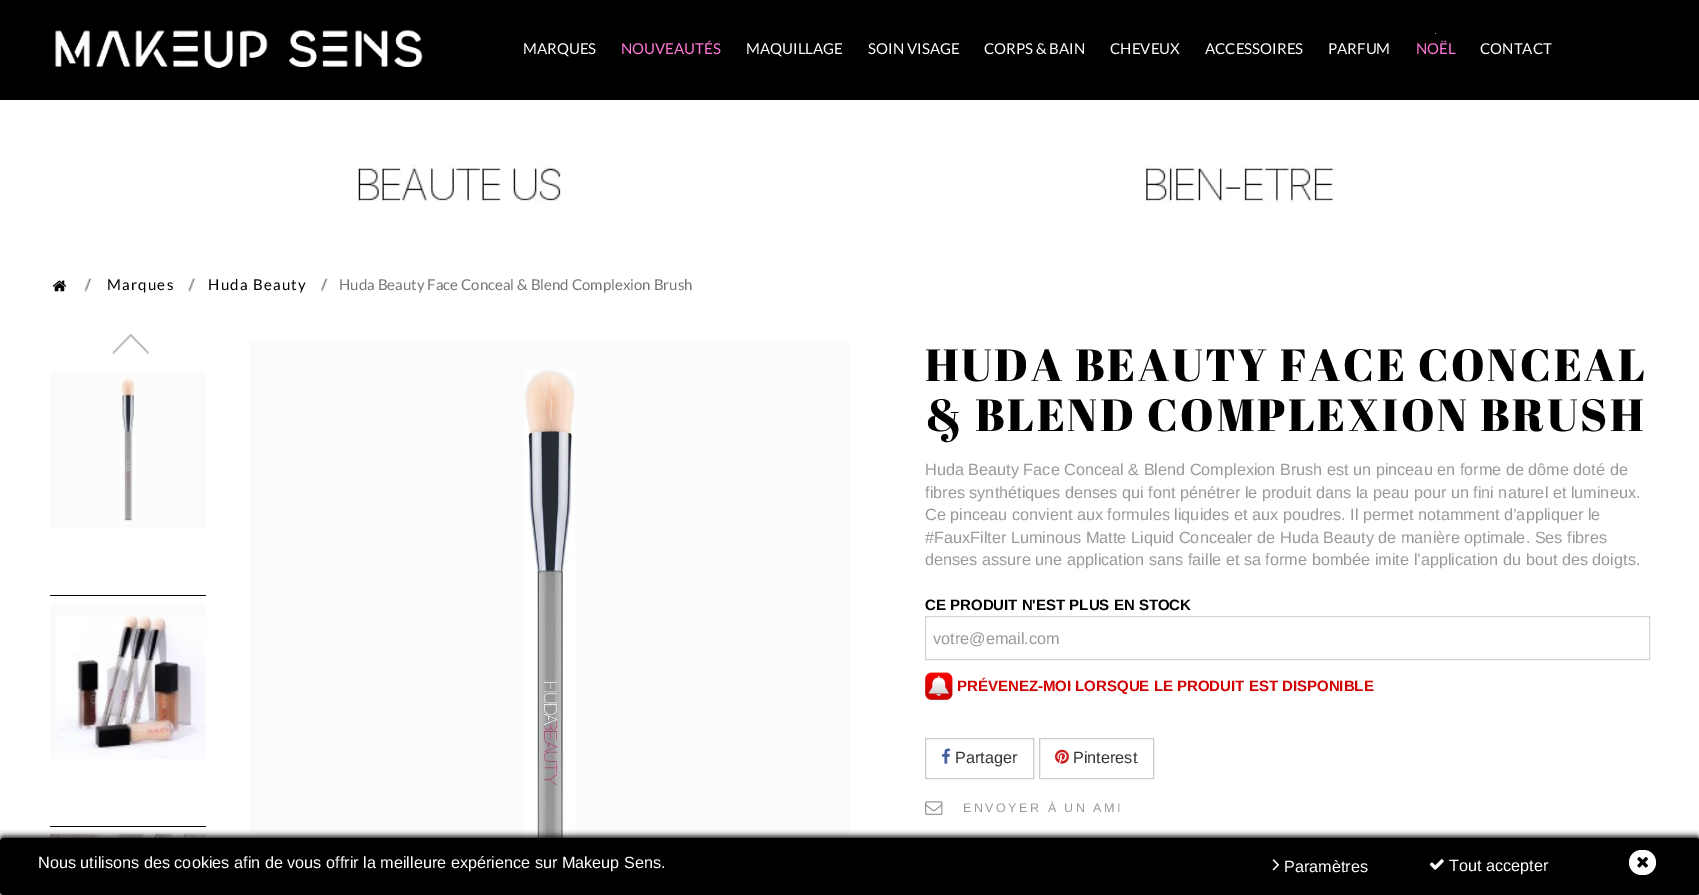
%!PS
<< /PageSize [1699 895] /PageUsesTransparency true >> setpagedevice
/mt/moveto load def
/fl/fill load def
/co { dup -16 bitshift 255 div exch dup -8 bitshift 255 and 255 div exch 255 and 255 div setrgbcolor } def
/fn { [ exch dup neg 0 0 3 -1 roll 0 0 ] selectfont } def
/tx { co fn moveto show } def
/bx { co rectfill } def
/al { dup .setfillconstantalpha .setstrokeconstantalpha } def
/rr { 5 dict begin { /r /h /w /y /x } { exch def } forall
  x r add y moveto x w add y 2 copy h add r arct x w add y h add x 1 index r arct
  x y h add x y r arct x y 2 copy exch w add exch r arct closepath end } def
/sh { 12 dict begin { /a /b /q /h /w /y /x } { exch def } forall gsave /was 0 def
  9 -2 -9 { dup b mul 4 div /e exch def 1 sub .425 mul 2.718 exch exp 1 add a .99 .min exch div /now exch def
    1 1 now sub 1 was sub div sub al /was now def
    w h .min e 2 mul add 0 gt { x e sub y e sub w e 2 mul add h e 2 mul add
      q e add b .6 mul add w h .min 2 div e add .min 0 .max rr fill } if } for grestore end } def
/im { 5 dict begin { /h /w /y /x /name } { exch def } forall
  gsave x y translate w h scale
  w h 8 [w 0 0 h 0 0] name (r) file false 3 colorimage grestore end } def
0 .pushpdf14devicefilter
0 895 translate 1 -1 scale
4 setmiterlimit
0 0 1699 895 16#FFFFFF bx
0 0 1699 100 16#000000 bx
(media/1.raw) 55 30 368 38 im
1435 33 1 1 16#FF78D8 bx
(media/2.raw) 354 164 207 40 im
(media/3.raw) 1144 164 192 40 im
(media/4.raw) 52 280 15 12 im
(media/5.raw) 84 278 8 14 im
(media/6.raw) 188 278 8 14 im
(media/7.raw) 321 278 7 14 im
(media/8.raw) 112 333 37 21 im
50 595 156 1 16#000000 bx
50 371 156 157 16#FBFBFB bx
(media/9.raw) 120 378 16 143 im
50 826 156 1 16#000000 bx
50 603 156 156 16#FBFBFB bx
(media/10.raw) 57 615 149 144 im
(media/11.raw) 50 833 157 5 im
250 340 600 498 16#FBFBFB bx
(media/12.raw) 525 370 50 468 im
16#D6D4D4 co
925.5 616.5 724 43 rectstroke
(media/13.raw) 925 672 28 28 im
16#CCCCCC co
925.5 738.5 108 40 rectstroke
(media/14.raw) 942 748 8 16 im
1039.5 738.5 114 40 rectstroke
(media/15.raw) 1055 749 14 15 im
(media/16.raw) 925 801 18 14 im
16#000000 co
-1 836 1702 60 5 3 1 sh
0 838 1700 57 4 rr fl
(media/17.raw) 1272 859 8 12 im
(media/18.raw) 1429 859 15 11 im
16#FFFFFF co
1629 850 27 25 12.5 rr fl
(media/19.raw) 1637 856 11 12 im
(MARQUES) 523 54 /Lato-Regular 15 16#FFFFFF tx
(NOUVEAUTÉS) 621 54 /Lato-Regular 15 16#FF78D8 tx
(MAQUILLAGE) 746 54 /Lato-Regular 15 16#FFFFFF tx
(SOIN VISAGE) 868 54 /Lato-Regular 15 16#FFFFFF tx
(CORPS & BAIN) 984 54 /Lato-Regular 15 16#FFFFFF tx
(CHEVEUX) 1110 54 /Lato-Regular 15 16#FFFFFF tx
(ACCESSOIRES) 1205 54 /Lato-Regular 15 16#FFFFFF tx
(PARFUM) 1328 54 /Lato-Regular 15 16#FFFFFF tx
(NOËL) 1416 54 /Lato-Regular 15 16#FF78D8 tx
(CONTACT) 1480 54 /Lato-Regular 15 16#FFFFFF tx
16#000000 co
107 290 mt 1.25 0 (Marques) ashow
208 290 mt 1.25 0 (Huda Beauty) ashow
(Huda Beauty Face Conceal & Blend Complexion Brush) 339 290 /Lato-Regular 15 16#777777 tx
/AbrilFatface-Regular 45 fn
16#000000 co
925 381 mt 2.5 0 (HUDA BEAUTY FACE CONCEAL) ashow
925 431 mt 2.5 0 (& BLEND COMPLEXION BRUSH) ashow
(Huda Beauty Face Conceal & Blend Complexion Brush est un pinceau en forme de dôme doté de) 925 475 /LiberationSans-Regular 16.25 16#999999 tx
(fibres synthétiques denses qui font pénétrer le produit dans la peau pour un fini naturel et lumineux.) 925 498 /LiberationSans-Regular 16.25 16#999999 tx
(Ce pinceau convient aux formules liquides et aux poudres. Il permet notamment d’appliquer le) 925 520 /LiberationSans-Regular 16.25 16#999999 tx
(#FauxFilter Luminous Matte Liquid Concealer de Huda Beauty de manière optimale. Ses fibres) 925 543 /LiberationSans-Regular 16.25 16#999999 tx
(denses assure une application sans faille et sa forme bombée imite l’application du bout des doigts.) 925 565 /LiberationSans-Regular 16.25 16#999999 tx
(CE PRODUIT N'EST PLUS EN STOCK) 925 610 /LiberationSans-Bold 15 16#000000 tx
(votre@email.com) 933 644 /LiberationSans-Regular 16.25 16#999999 tx
(PRÉVENEZ-MOI LORSQUE LE PRODUIT EST DISPONIBLE) 957 691 /LiberationSans-Bold 15 16#D20001 tx
(Partager) 955 763 /LiberationSans-Regular 16.25 16#333333 tx
(Pinterest) 1073 763 /LiberationSans-Regular 16.25 16#333333 tx
/LiberationSans-Regular 12.5 fn
16#999999 co
963 812 mt 2.5 0 (ENVOYER À UN AMI) ashow
(Nous utilisons des cookies afin de vous offrir la meilleure expérience sur Makeup Sens.) 38 868 /LiberationSans-Regular 16.25 16#FFFFFF tx
(Paramètres) 1284 872 /LiberationSans-Regular 16.25 16#FFFFFF tx
(Tout accepter) 1449 871 /LiberationSans-Regular 16.25 16#FFFFFF tx
.poppdf14devicefilter showpage
